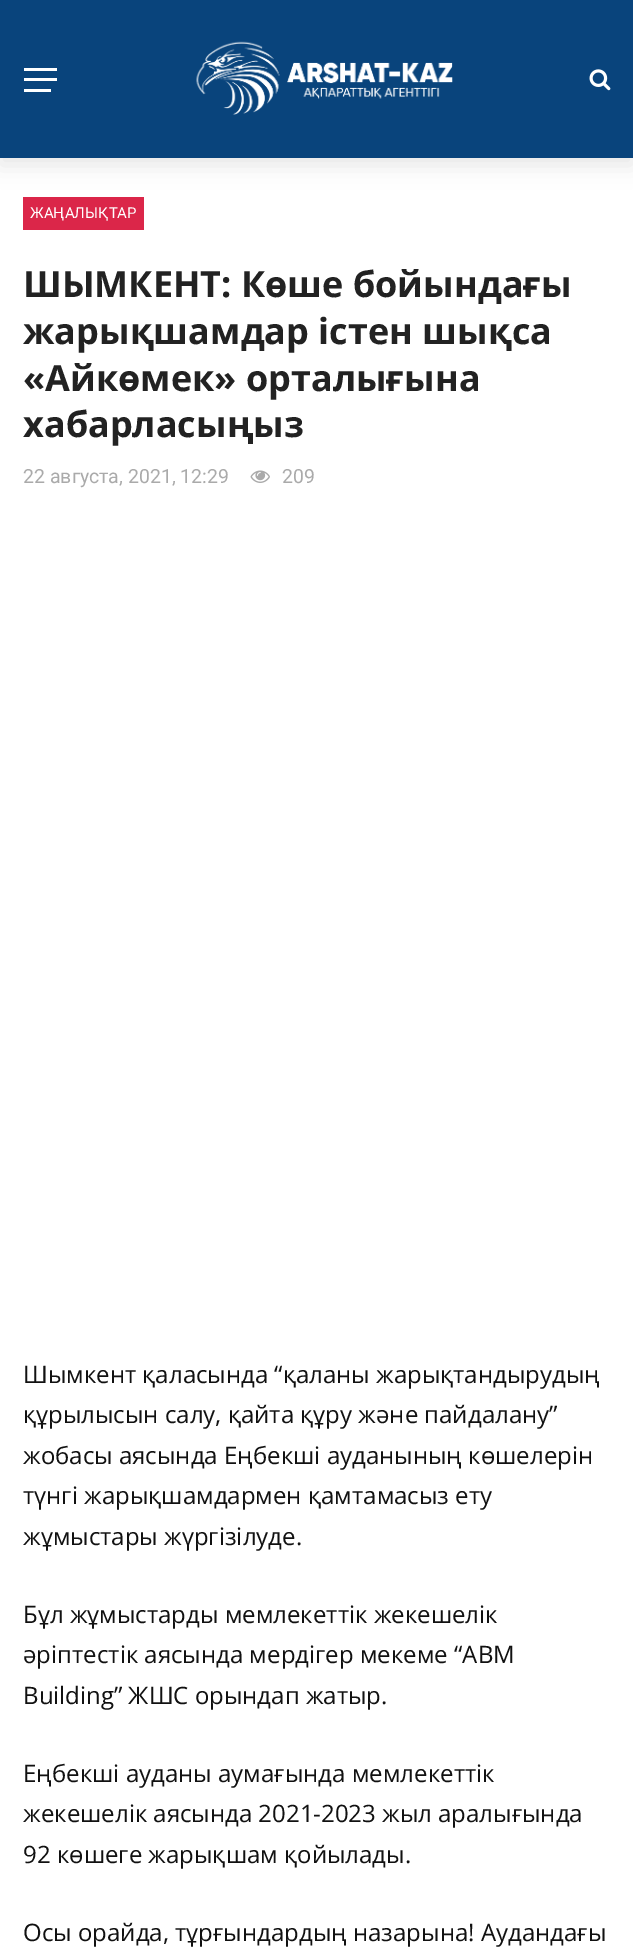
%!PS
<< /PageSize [633 1949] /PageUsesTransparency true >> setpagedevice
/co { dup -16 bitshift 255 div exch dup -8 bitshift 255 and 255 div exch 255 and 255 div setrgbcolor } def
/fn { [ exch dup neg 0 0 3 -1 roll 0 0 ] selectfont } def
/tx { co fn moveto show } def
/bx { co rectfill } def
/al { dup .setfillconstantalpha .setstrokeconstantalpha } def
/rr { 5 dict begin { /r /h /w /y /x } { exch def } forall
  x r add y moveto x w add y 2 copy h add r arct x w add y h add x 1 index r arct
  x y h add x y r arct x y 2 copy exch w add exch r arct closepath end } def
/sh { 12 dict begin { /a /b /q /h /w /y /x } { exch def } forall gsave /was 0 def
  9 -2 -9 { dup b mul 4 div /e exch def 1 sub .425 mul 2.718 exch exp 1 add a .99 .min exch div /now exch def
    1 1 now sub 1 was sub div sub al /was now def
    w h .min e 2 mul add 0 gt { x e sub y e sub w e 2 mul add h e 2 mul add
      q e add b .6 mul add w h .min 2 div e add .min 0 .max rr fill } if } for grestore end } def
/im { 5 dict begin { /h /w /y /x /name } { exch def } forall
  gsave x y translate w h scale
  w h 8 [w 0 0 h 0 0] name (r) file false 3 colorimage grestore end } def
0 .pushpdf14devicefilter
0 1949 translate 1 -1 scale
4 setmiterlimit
0 0 633 1949 16#FFFFFF bx
23 197 121 33 16#DB2649 bx
16#000000 co
0 8 633 157 0 11 .1 sh
0 0 633 158 16#09447C bx
24 68 33 3 16#FFFFFF bx
24 78 33 3 16#FFFFFF bx
24 89 27 3 16#FFFFFF bx
(media/1.raw) 196 41 257 74 im
(media/2.raw) 589 69 22 22 im
(media/3.raw) 250 470 20 13 im
(ЖАҢАЛЫҚТАР) 30 218 /Roboto-Regular 15 16#FFFFFF tx
(ШЫМКЕНТ: Көше бойындағы) 23 297 /OpenSans-Bold 36 16#222222 tx
(жарықшамдар істен шықса) 23 344 /OpenSans-Bold 36 16#222222 tx
(«Айкөмек» орталығына) 23 391 /OpenSans-Bold 36 16#222222 tx
(хабарласыңыз) 23 437 /OpenSans-Bold 36 16#222222 tx
(22 августа, 2021, 12:29) 23 483 /Roboto-Regular 19.5 16#AAAAAA tx
(209) 282 483 /Roboto-Regular 19.5 16#AAAAAA tx
(Шымкент қаласында “қаланы жарықтандырудың) 23 1383 /OpenSans-Regular 24 16#111111 tx
(құрылысын салу, қайта құру және пайдалану”) 23 1423 /OpenSans-Regular 24 16#111111 tx
(жобасы аясында Еңбекші ауданының көшелерін) 23 1464 /OpenSans-Regular 24 16#111111 tx
(түнгі жарықшамдармен қамтамасыз ету) 23 1504 /OpenSans-Regular 24 16#111111 tx
(жұмыстары жүргізілуде.) 23 1545 /OpenSans-Regular 24 16#111111 tx
(Бұл жұмыстарды мемлекеттік жекешелік) 23 1623 /OpenSans-Regular 24 16#111111 tx
(әріптестік аясында мердігер мекеме “АВМ) 23 1663 /OpenSans-Regular 24 16#111111 tx
(Building” ЖШС орындап жатыр.) 23 1704 /OpenSans-Regular 24 16#111111 tx
(Еңбекші ауданы аумағында мемлекеттік) 23 1782 /OpenSans-Regular 24 16#111111 tx
(жекешелік аясында 2021-2023 жыл аралығында) 23 1822 /OpenSans-Regular 24 16#111111 tx
(92 көшеге жарықшам қойылады.) 23 1863 /OpenSans-Regular 24 16#111111 tx
(Осы орайда, тұрғындардың назарына! Аудандағы) 23 1941 /OpenSans-Regular 24 16#111111 tx
.poppdf14devicefilter showpage
